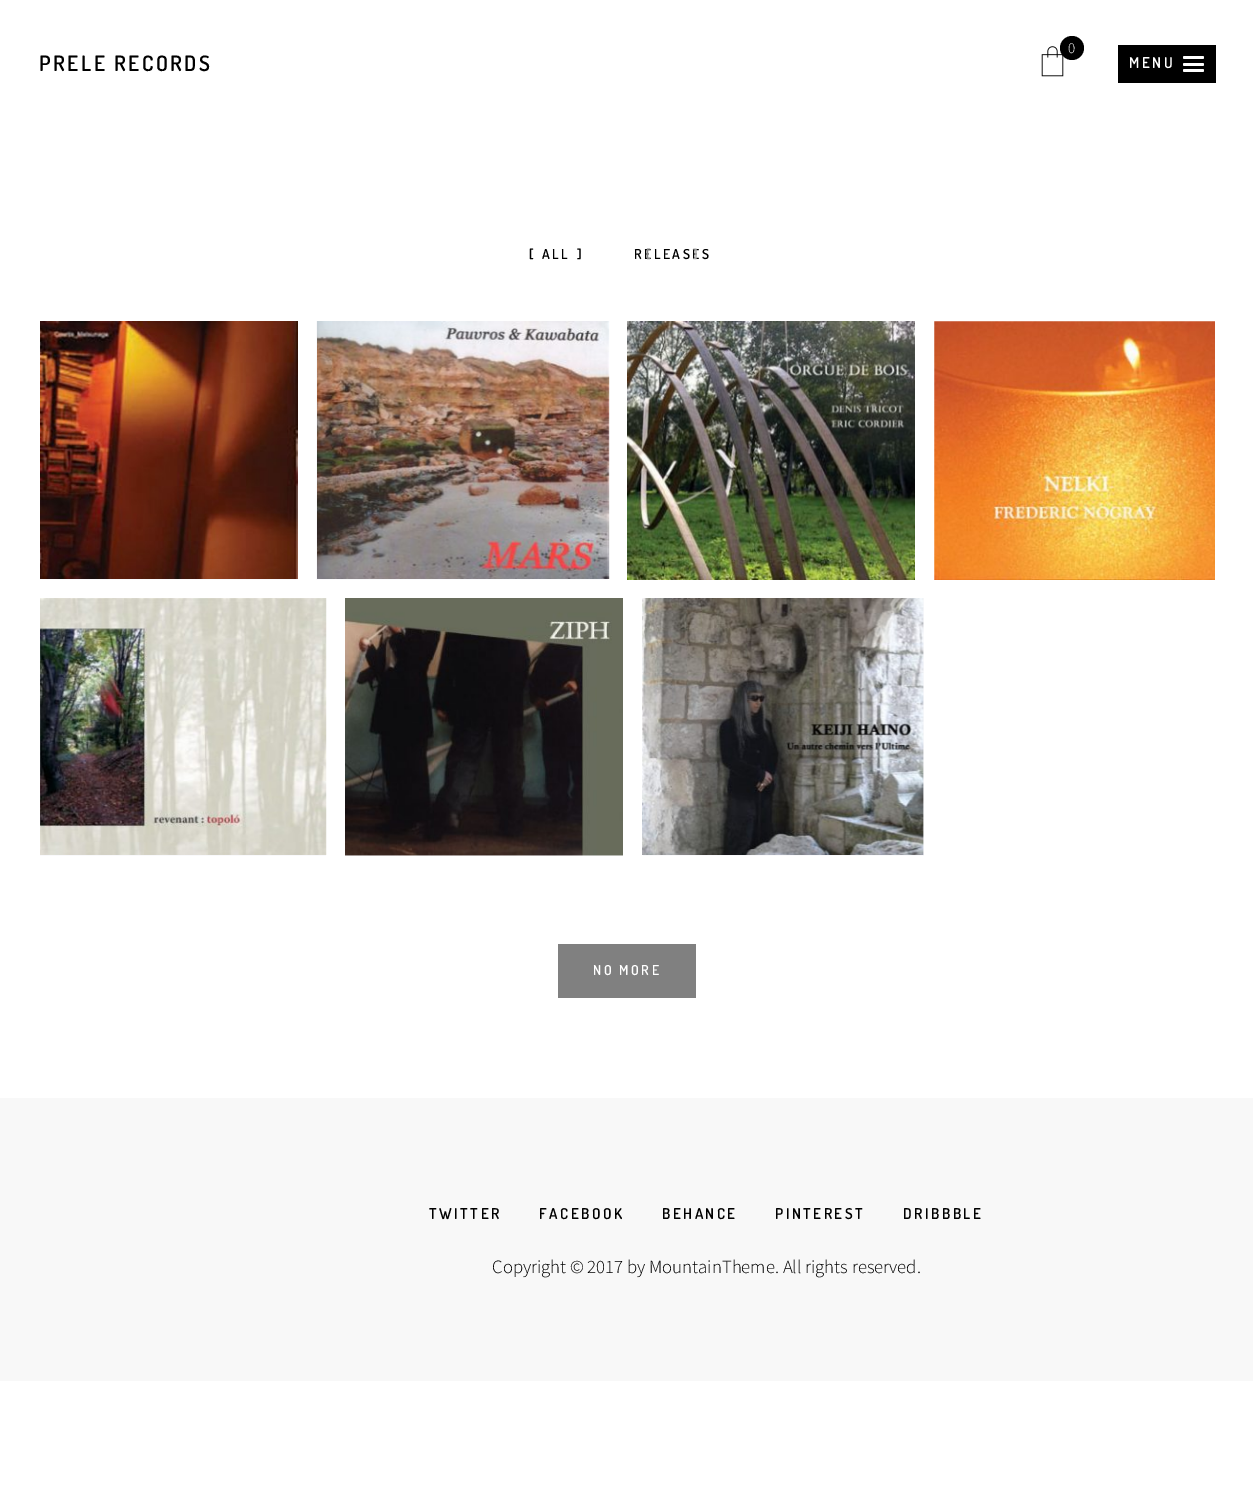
%!PS
<< /PageSize [1253 1509] >> setpagedevice
/mt/moveto load def
/fl/fill load def
/co { dup -16 bitshift 255 div exch dup -8 bitshift 255 and 255 div exch 255 and 255 div setrgbcolor } def
/fn { [ exch dup neg 0 0 3 -1 roll 0 0 ] selectfont } def
/tx { co fn moveto show } def
/bx { co rectfill } def
/ci { newpath 0 360 arc closepath } def
/rr { 5 dict begin { /r /h /w /y /x } { exch def } forall
  x r add y moveto x w add y 2 copy h add r arct x w add y h add x 1 index r arct
  x y h add x y r arct x y 2 copy exch w add exch r arct closepath end } def
/im { 5 dict begin { /h /w /y /x /name } { exch def } forall
  gsave x y translate w h scale
  w h 8 [w 0 0 h 0 0] name (r) file false 3 colorimage grestore end } def
0 1509 translate 1 -1 scale
4 setmiterlimit
0 0 1253 1509 16#FFFFFF bx
(media/1.raw) 1041 46 23 31 im
16#000000 co
1072 48 12 ci fl
1118 45 98 38 16#000000 bx
16#FFFFFF co
1183 56 21 3 1.5 rr fl
1183 63 21 3 1.5 rr fl
1183 69 21 3 1.5 rr fl
(media/2.raw) 40 321 258 258 im
40 579 258 1 16#F9F9FB bx
316 321 292 259 16#F9F9FB bx
(media/3.raw) 317 321 293 258 im
(media/4.raw) 627 321 288 259 im
934 321 280 259 16#F9F9FB bx
(media/5.raw) 934 321 281 259 im
(media/6.raw) 40 598 287 257 im
40 855 286 1 16#F9F9FB bx
345 855 278 1 16#F9F9FB bx
(media/7.raw) 345 598 278 258 im
643 598 281 258 16#F9F9FB bx
(media/8.raw) 642 598 282 257 im
558 944 138 54 16#808080 bx
0 1098 1253 283 16#F8F8F8 bx
(0) 1068 53 /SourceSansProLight-Light 15 16#FFFFFF tx
/Dosis-SemiBold 21.25 fn
16#000000 co
39 71 mt 2.5 0 (PRELE RECORDS) ashow
/Dosis-SemiBold 15 fn
16#FFFFFF co
1129 68 mt 2.5 0 (MENU) ashow
/Dosis-SemiBold 13.75 fn
16#000000 co
529 259 mt 2.5 0 ([) ashow
542 259 mt 2.5 0 (ALL) ashow
577 259 mt 2.5 0 (]) ashow
634 259 mt 2.5 0 (RELEASES) ashow
16#888888 co
646 259 mt 2.5 0 ([) ashow
16#ABABAB co
693 259 mt 2.5 0 (]) ashow
16#FFFFFF co
593 975 mt 2.5 0 (NO MORE) ashow
/Dosis-SemiBold 15 fn
16#000000 co
429 1219 mt 2.5 0 (TWITTER) ashow
539 1219 mt 2.5 0 (FACEBOOK) ashow
662 1219 mt 2.5 0 (BEHANCE) ashow
775 1219 mt 2.5 0 (PINTEREST) ashow
903 1219 mt 2.5 0 (DRIBBBLE) ashow
(Copyright © 2017 by MountainTheme. All rights reserved.) 492 1273 /SourceSansProLight-Light 18.75 16#000000 tx
showpage
